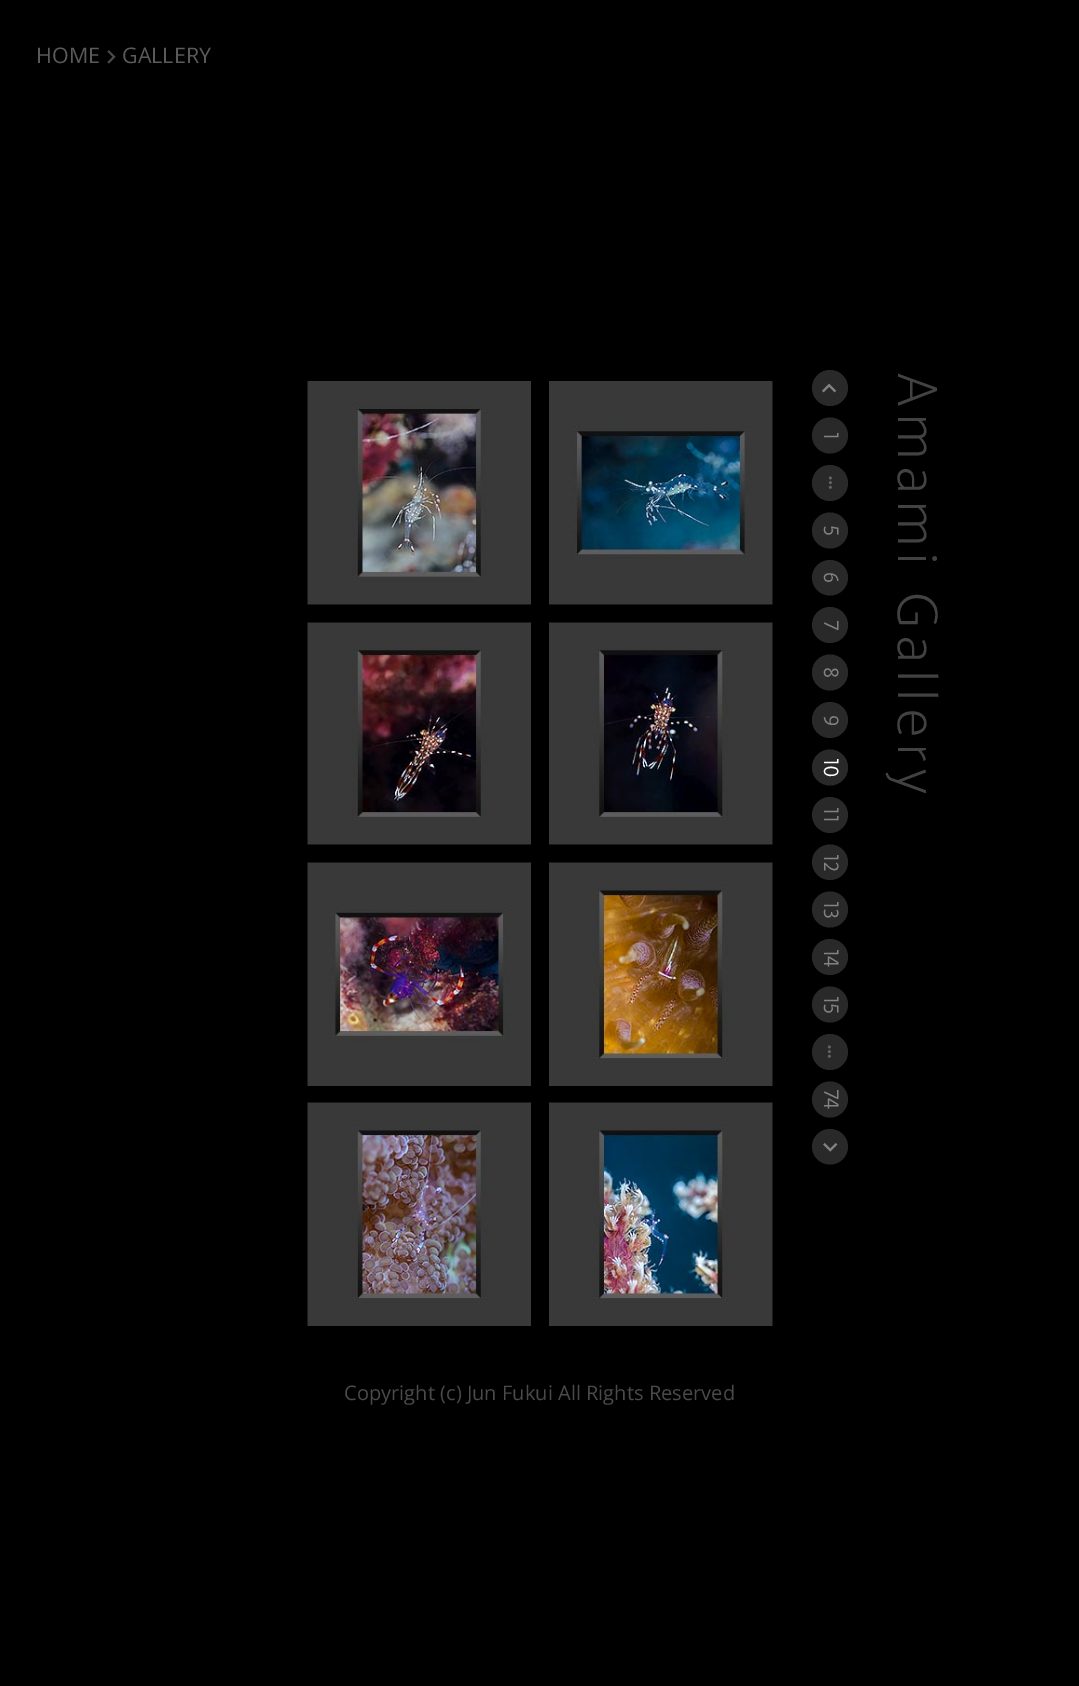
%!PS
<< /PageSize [1079 1686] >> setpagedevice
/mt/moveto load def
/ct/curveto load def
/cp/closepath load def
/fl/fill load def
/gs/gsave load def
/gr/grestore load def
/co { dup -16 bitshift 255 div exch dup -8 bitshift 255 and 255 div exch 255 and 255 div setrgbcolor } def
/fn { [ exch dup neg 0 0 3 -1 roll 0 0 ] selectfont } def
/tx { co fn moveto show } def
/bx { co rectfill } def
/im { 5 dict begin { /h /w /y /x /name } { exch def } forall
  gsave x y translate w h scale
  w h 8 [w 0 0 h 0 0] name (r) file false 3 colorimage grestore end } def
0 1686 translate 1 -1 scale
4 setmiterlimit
0 0 1079 1686 16#000000 bx
(media/1.raw) 107 50 9 14 im
(media/2.raw) 307 381 224 224 im
(media/3.raw) 549 381 224 224 im
(media/4.raw) 307 622 224 223 im
(media/5.raw) 549 622 224 223 im
(media/6.raw) 307 862 224 224 im
(media/7.raw) 549 862 224 224 im
(media/8.raw) 307 1102 224 224 im
(media/9.raw) 549 1102 224 224 im
16#292929 co
848 388 mt 848 398 840 406 830 406 ct 820 406 812 398 812 388 ct 812 378 820 370 830 370 ct 840 370 848 378 848 388 ct cp fl
(media/10.raw) 822 383 15 10 im
848 435.5 mt 848 445.5 840 453.5 830 453.5 ct 820 453.5 812 445.5 812 435.5 ct 812 425.5 820 417.5 830 417.5 ct 840 417.5 848 425.5 848 435.5 ct cp fl
848 483 mt 848 493 840 501 830 501 ct 820 501 812 493 812 483 ct 812 473 820 465 830 465 ct 840 465 848 473 848 483 ct cp fl
(media/11.raw) 828 476 4 13 im
848 530.5 mt 848 540.5 840 548.5 830 548.5 ct 820 548.5 812 540.5 812 530.5 ct 812 520.5 820 512.5 830 512.5 ct 840 512.5 848 520.5 848 530.5 ct cp fl
848 577.5 mt 848 587.5 840 595.5 830 595.5 ct 820 595.5 812 587.5 812 577.5 ct 812 568 820 560 830 560 ct 840 560 848 568 848 577.5 ct cp fl
848 625 mt 848 635 840 643 830 643 ct 820 643 812 635 812 625 ct 812 615 820 607 830 607 ct 840 607 848 615 848 625 ct cp fl
848 672.5 mt 848 682.5 840 690.5 830 690.5 ct 820 690.5 812 682.5 812 672.5 ct 812 662.5 820 654.5 830 654.5 ct 840 654.5 848 662.5 848 672.5 ct cp fl
848 720 mt 848 730 840 738 830 738 ct 820 738 812 730 812 720 ct 812 710 820 702 830 702 ct 840 702 848 710 848 720 ct cp fl
848 767.5 mt 848 777.5 840 785.5 830 785.5 ct 820 785.5 812 777.5 812 767.5 ct 812 757.5 820 749.5 830 749.5 ct 840 749.5 848 757.5 848 767.5 ct cp fl
848 815 mt 848 824.5 840 833 830 833 ct 820 833 812 824.5 812 815 ct 812 805 820 797 830 797 ct 840 797 848 805 848 815 ct cp fl
848 862 mt 848 872 840 880 830 880 ct 820 880 812 872 812 862 ct 812 852.5 820 844.5 830 844.5 ct 840 844.5 848 852.5 848 862 ct cp fl
848 909.5 mt 848 919.5 840 927.5 830 927.5 ct 820 927.5 812 919.5 812 909.5 ct 812 899.5 820 891.5 830 891.5 ct 840 891.5 848 899.5 848 909.5 ct cp fl
848 957 mt 848 967 840 975 830 975 ct 820 975 812 967 812 957 ct 812 947 820 939 830 939 ct 840 939 848 947 848 957 ct cp fl
848 1004.5 mt 848 1014.5 840 1022.5 830 1022.5 ct 820 1022.5 812 1014.5 812 1004.5 ct 812 994.5 820 986.5 830 986.5 ct 840 986.5 848 994.5 848 1004.5 ct cp fl
848 1052 mt 848 1062 840 1070 830 1070 ct 820 1070 812 1062 812 1052 ct 812 1042 820 1034 830 1034 ct 840 1034 848 1042 848 1052 ct cp fl
(media/12.raw) 827 1045 4 13 im
848 1099.5 mt 848 1109 840 1117.5 830 1117.5 ct 820 1117.5 812 1109 812 1099.5 ct 812 1089.5 820 1081.5 830 1081.5 ct 840 1081.5 848 1089.5 848 1099.5 ct cp fl
848 1146.5 mt 848 1156.5 840 1164.5 830 1164.5 ct 820 1164.5 812 1156.5 812 1146.5 ct 812 1137 820 1129 830 1129 ct 840 1129 848 1137 848 1146.5 ct cp fl
(media/13.raw) 823 1143 15 9 im
(HOME) 36 63 /OpenSans-Regular 21.5 16#5A5A5A tx
(GALLERY) 122 63 /OpenSans-Regular 21.5 16#5A5A5A tx
/DuruSans-Regular 19 fn
16#828282 co
gs 824 431 translate 90 rotate 0 0 mt -2 0 (1) ashow gr
gs 824 525 translate 90 rotate 0 0 mt -2 0 (5) ashow gr
gs 824 572 translate 90 rotate 0 0 mt -2 0 (6) ashow gr
gs 824 620 translate 90 rotate 0 0 mt -2 0 (7) ashow gr
gs 824 667 translate 90 rotate 0 0 mt -2 0 (8) ashow gr
gs 824 715 translate 90 rotate 0 0 mt -2 0 (9) ashow gr
16#FFFFFF co
gs 824 757 translate 90 rotate 0 0 mt -2 0 (10) ashow gr
16#828282 co
gs 824 806 translate 90 rotate 0 0 mt -2 0 (11) ashow gr
gs 824 853 translate 90 rotate 0 0 mt -2 0 (12) ashow gr
gs 824 900 translate 90 rotate 0 0 mt -2 0 (13) ashow gr
gs 824 948 translate 90 rotate 0 0 mt -2 0 (14) ashow gr
gs 824 995 translate 90 rotate 0 0 mt -2 0 (15) ashow gr
gs 824 1089 translate 90 rotate 0 0 mt -2 0 (74) ashow gr
/Catamaran-Thin 57.5 fn
16#424242 co
gs 898 373 translate 90 rotate 0 0 mt 7.25 0 (Amami Gallery) ashow gr
(Copyright \(c\) Jun Fukui All Rights Reserved) 344 1400 /OpenSans-Regular 20.1 16#4A4A4A tx
showpage
